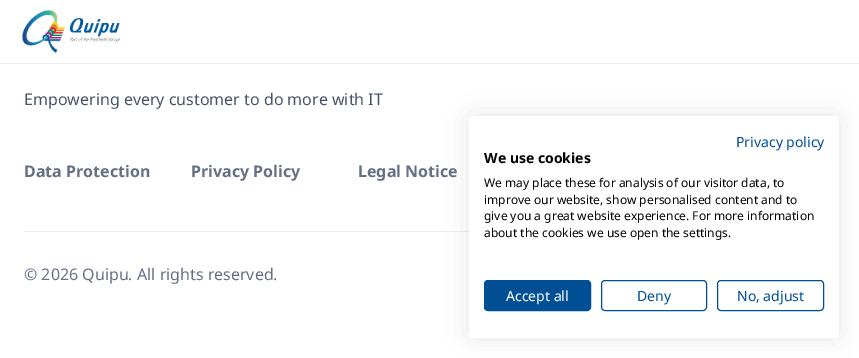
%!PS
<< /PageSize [859 358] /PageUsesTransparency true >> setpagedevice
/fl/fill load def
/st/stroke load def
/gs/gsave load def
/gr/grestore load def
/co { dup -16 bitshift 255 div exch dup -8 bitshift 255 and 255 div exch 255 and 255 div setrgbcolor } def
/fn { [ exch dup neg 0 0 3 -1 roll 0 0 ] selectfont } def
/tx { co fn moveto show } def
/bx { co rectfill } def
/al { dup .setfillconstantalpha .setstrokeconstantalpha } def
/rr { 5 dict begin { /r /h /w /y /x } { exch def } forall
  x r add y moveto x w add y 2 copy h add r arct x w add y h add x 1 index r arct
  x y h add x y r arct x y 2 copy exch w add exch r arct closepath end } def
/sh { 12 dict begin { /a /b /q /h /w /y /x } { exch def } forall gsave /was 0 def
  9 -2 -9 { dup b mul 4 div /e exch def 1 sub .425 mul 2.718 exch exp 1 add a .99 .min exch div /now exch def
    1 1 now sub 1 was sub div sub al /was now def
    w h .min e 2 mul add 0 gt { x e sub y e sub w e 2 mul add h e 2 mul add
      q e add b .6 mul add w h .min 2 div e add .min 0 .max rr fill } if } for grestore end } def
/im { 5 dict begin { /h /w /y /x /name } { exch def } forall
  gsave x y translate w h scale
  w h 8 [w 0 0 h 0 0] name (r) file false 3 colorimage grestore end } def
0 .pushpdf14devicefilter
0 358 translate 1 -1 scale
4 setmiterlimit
0 0 859 358 16#FFFFFF bx
0 63 859 1 16#EAECF0 bx
(media/1.raw) 22 10 98 43 im
24 231 445 1 16#EAECF0 bx
16#000000 co
469 116 370 222 4 12 .1 sh
16#FFFFFF co
469 116 370 222 4 rr fl
16#004F95 co
484.5 280.5 106 30 3.5 rr gs fl gr
st
601.5 280.5 105 30 3.5 rr st
717.5 280.5 106 30 3.5 rr st
(Empowering every customer to do more with IT) 24 105 /NotoSans-Regular 16 16#475467 tx
(Data Protection) 24 177 /NotoSans-Bold 16 16#667085 tx
(Privacy Policy) 191 177 /NotoSans-Bold 16 16#667085 tx
(Legal Notice) 358 177 /NotoSans-Bold 16 16#667085 tx
(© 2026 Quipu. All rights reserved.) 24 280 /NotoSans-Regular 16 16#667085 tx
(Privacy policy) 736 147 /NotoSans-Regular 14 16#004F95 tx
(We use cookies) 484 163 /NotoSans-Bold 14 16#000000 tx
(We may place these for analysis of our visitor data, to) 484 187 /NotoSans-Regular 12 16#000000 tx
(improve our website, show personalised content and to) 484 204 /NotoSans-Regular 12 16#000000 tx
(give you a great website experience. For more information) 484 220 /NotoSans-Regular 12 16#000000 tx
(about the cookies we use open the settings.) 484 237 /NotoSans-Regular 12 16#000000 tx
(Accept all) 506 301 /NotoSans-Regular 14 16#FFFFFF tx
(Deny) 637 301 /NotoSans-Regular 14 16#004F95 tx
(No, adjust) 737 301 /NotoSans-Regular 14 16#004F95 tx
.poppdf14devicefilter showpage
